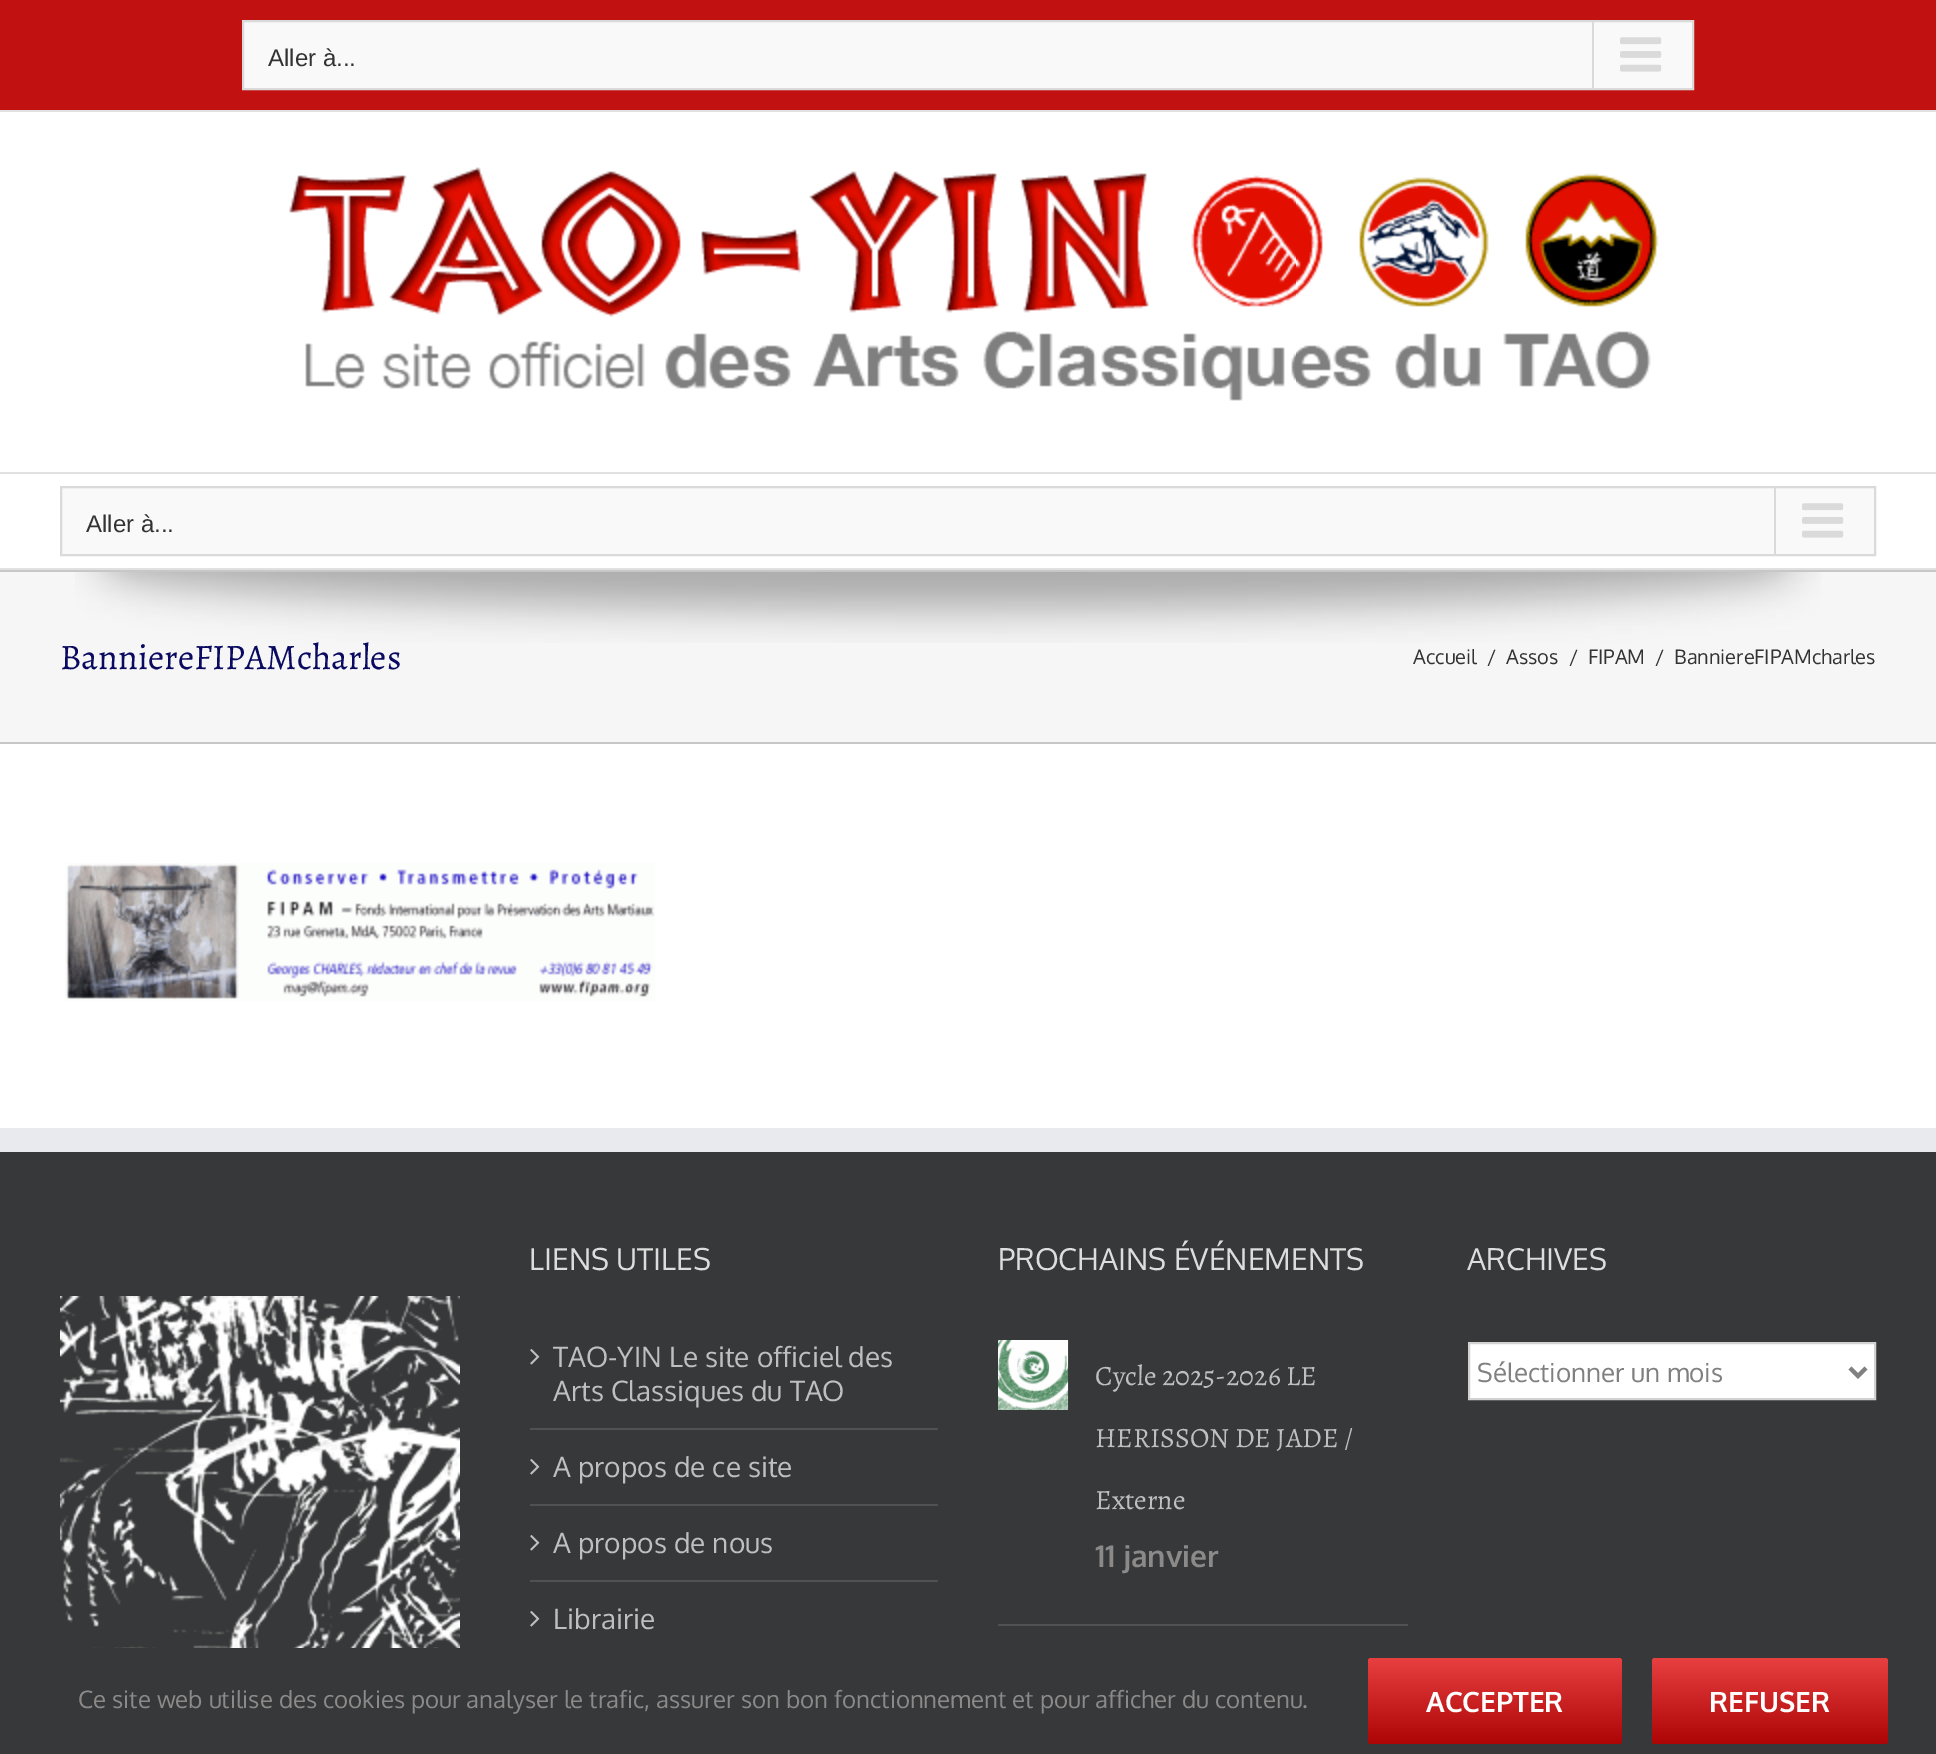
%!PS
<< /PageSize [1936 1754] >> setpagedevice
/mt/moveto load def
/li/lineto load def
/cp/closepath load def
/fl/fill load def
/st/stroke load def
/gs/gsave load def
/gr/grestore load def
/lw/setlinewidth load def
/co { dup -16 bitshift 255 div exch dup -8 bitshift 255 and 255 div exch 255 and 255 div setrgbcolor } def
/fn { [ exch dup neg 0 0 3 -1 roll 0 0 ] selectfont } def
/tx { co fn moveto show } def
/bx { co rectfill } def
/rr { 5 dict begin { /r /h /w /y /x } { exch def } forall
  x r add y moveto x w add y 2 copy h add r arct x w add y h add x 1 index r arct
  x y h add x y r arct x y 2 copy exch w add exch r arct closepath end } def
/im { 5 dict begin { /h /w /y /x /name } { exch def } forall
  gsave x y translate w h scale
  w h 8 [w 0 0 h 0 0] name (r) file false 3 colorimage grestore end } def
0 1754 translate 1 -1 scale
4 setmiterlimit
0 0 1936 1754 16#FFFFFF bx
0 0 1936 110 16#C11111 bx
0 110 1936 2 16#E1E1E1 bx
16#F9F9F9 co
243 21 mt 1693 21 li 1693 89 li 243 89 li cp gs fl gr
16#DADADA co
2 lw
st
1592 22 2 66 16#DADADA bx
(media/1.raw) 1620 37 42 35 im
0 472 1936 2 16#E1E1E1 bx
(media/2.raw) 289 167 1370 234 im
0 568 1936 2 16#E1E1E1 bx
16#F9F9F9 co
61 487 mt 1875 487 li 1875 555 li 61 555 li cp gs fl gr
16#DADADA co
st
1774 488 2 66 16#DADADA bx
(media/1.raw) 1802 503 42 35 im
0 572 1936 170 16#F6F6F6 bx
(media/3.raw) 75 572 1746 71 im
0 570 1936 2 16#C7C7C7 bx
0 742 1936 2 16#C7C7C7 bx
(media/4.raw) 65 863 590 138 im
0 1152 1936 602 16#363839 bx
0 1128 1936 24 16#E9EAEE bx
(media/5.raw) 60 1296 400 352 im
530 1428 408 2 16#505152 bx
(media/6.raw) 530 1349 10 16 im
530 1504 408 2 16#505152 bx
(media/6.raw) 530 1459 10 16 im
530 1580 408 2 16#505152 bx
(media/6.raw) 530 1535 10 16 im
(media/6.raw) 530 1611 10 16 im
998 1624 410 2 16#505152 bx
(media/7.raw) 998 1340 71 70 im
16#FFFFFF co
1469 1343 mt 1875 1343 li 1875 1399 li 1469 1399 li cp gs fl gr
16#D2D2D2 co
st
16#808080 co
4 lw
1850 1368 mt 1858 1376 li 1866 1368 li st
gs 1368 1658 254 86 4 rr clip newpath
<< /ShadingType 2 /ColorSpace /DeviceRGB /Coords [1495 1658 1495 1744] /Extend [true true] /Function << /FunctionType 2 /Domain [0 1] /C0 [.91 .251 .251] /C1 [.678 .02 .02] /N 1 >> >> shfill gr
gs 1652 1658 236 86 4 rr clip newpath
<< /ShadingType 2 /ColorSpace /DeviceRGB /Coords [1770 1658 1770 1744] /Extend [true true] /Function << /FunctionType 2 /Domain [0 1] /C0 [.91 .251 .251] /C1 [.678 .02 .02] /N 1 >> >> shfill gr
(Aller à...) 268 66 /LiberationSans-Regular 24 16#333333 tx
(Aller à...) 86 532 /LiberationSans-Regular 24 16#333333 tx
(BanniereFIPAMcharles) 60 669 /Alegreya-Regular 36 16#0A0A61 tx
(Accueil) 1413 664 /Oxygen-Regular 20 16#333333 tx
(/) 1487 664 /Oxygen-Regular 20 16#333333 tx
(Assos) 1506 664 /Oxygen-Regular 20 16#333333 tx
(/) 1569 664 /Oxygen-Regular 20 16#333333 tx
(FIPAM) 1588 664 /Oxygen-Regular 20 16#333333 tx
(/) 1655 664 /Oxygen-Regular 20 16#333333 tx
(BanniereFIPAMcharles) 1674 664 /Oxygen-Regular 20 16#333333 tx
(LIENS UTILES) 529 1270 /Oxygen-Regular 30 16#DDDDDD tx
(TAO-YIN Le site officiel des) 553 1367 /Oxygen-Regular 28 16#BFBFBF tx
(Arts Classiques du TAO) 553 1401 /Oxygen-Regular 28 16#BFBFBF tx
(A propos de ce site) 553 1477 /Oxygen-Regular 28 16#BFBFBF tx
(A propos de nous) 553 1553 /Oxygen-Regular 28 16#BFBFBF tx
(Librairie) 553 1629 /Oxygen-Regular 28 16#BFBFBF tx
(PROCHAINS ÉVÉNEMENTS) 998 1270 /Oxygen-Regular 30 16#DDDDDD tx
(Cycle 2025-2026 LE) 1095 1385 /Alegreya-Regular 28 16#BFBFBF tx
(HERISSON DE JADE /) 1095 1447 /Alegreya-Regular 28 16#BFBFBF tx
(Externe) 1095 1509 /Alegreya-Regular 28 16#BFBFBF tx
(11 janvier) 1095 1567 /Oxygen-Bold 30 16#8C8989 tx
(ARCHIVES) 1467 1270 /Oxygen-Regular 30 16#DDDDDD tx
(Sélectionner un mois) 1477 1382 /Oxygen-Regular 26 16#808080 tx
(Ce site web utilise des cookies pour analyser le trafic, assurer son bon fonctionnement et pour afficher du contenu.) 78 1708 /Oxygen-Regular 24 16#8C8989 tx
(ACCEPTER) 1426 1712 /Oxygen-Bold 28 16#FFFFFF tx
(REFUSER) 1709 1712 /Oxygen-Bold 28 16#FFFFFF tx
showpage
